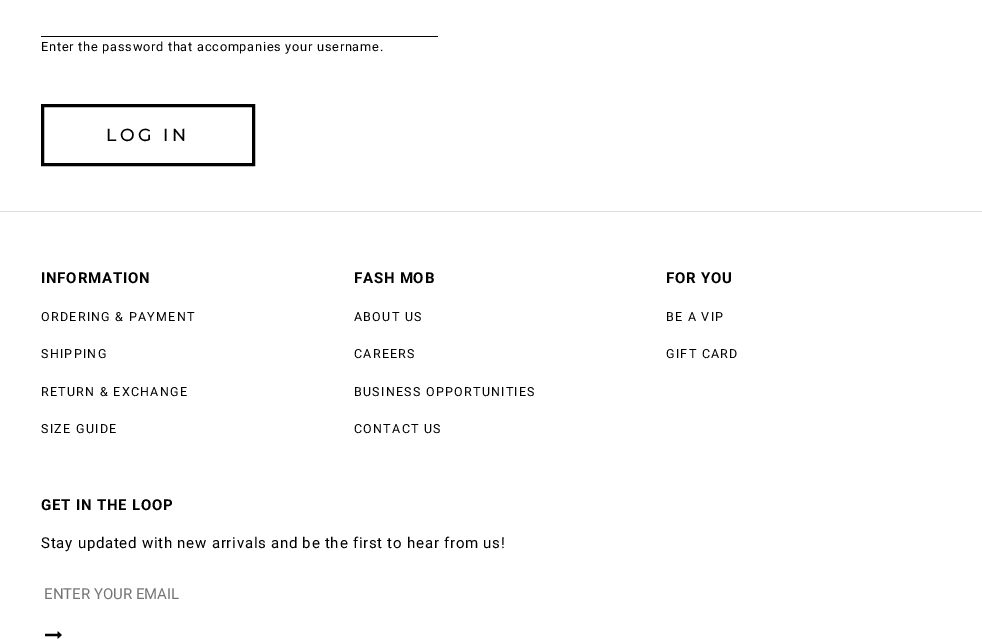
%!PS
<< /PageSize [982 639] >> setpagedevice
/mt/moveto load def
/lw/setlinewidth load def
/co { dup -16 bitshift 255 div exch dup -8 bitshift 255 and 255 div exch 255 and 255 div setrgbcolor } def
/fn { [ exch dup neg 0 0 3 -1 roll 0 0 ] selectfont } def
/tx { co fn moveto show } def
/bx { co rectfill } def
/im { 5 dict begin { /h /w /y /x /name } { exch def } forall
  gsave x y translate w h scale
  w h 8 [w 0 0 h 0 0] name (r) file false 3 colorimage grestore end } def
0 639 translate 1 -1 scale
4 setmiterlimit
0 0 982 639 16#FFFFFF bx
41 36 397 1 16#000000 bx
3 lw
42.5 105.5 211 59 rectstroke
0 211 982 1 16#DDDDDD bx
(media/1.raw) 45 631 17 8 im
/Roboto-Regular 12.75 fn
16#000000 co
41 51 mt .75 0 (Enter the password that accompanies your username.) ashow
/Montserrat-Medium 17.5 fn
106 141 mt 3.5 0 (LOG IN) ashow
/Roboto-Bold 15 fn
41 283 mt .75 0 (INFORMATION) ashow
/Roboto-Regular 12.5 fn
41 321 mt 1.25 0 (ORDERING & PAYMENT) ashow
41 358 mt 1.25 0 (SHIPPING) ashow
41 396 mt 1.25 0 (RETURN & EXCHANGE) ashow
41 433 mt 1.25 0 (SIZE GUIDE) ashow
/Roboto-Bold 15 fn
354 283 mt .75 0 (FASH MOB) ashow
/Roboto-Regular 12.5 fn
354 321 mt 1.25 0 (ABOUT US) ashow
354 358 mt 1.25 0 (CAREERS) ashow
354 396 mt 1.25 0 (BUSINESS OPPORTUNITIES) ashow
354 433 mt 1.25 0 (CONTACT US) ashow
/Roboto-Bold 15 fn
666 283 mt .75 0 (FOR YOU) ashow
/Roboto-Regular 12.5 fn
666 321 mt 1.25 0 (BE A VIP) ashow
666 358 mt 1.25 0 (GIFT CARD) ashow
/Roboto-Bold 15 fn
41 510 mt .75 0 (GET IN THE LOOP) ashow
/Roboto-Regular 15 fn
41 548 mt .75 0 (Stay updated with new arrivals and be the first to hear from us!) ashow
(ENTER YOUR EMAIL) 44 599 /Roboto-Regular 15 16#757575 tx
showpage
